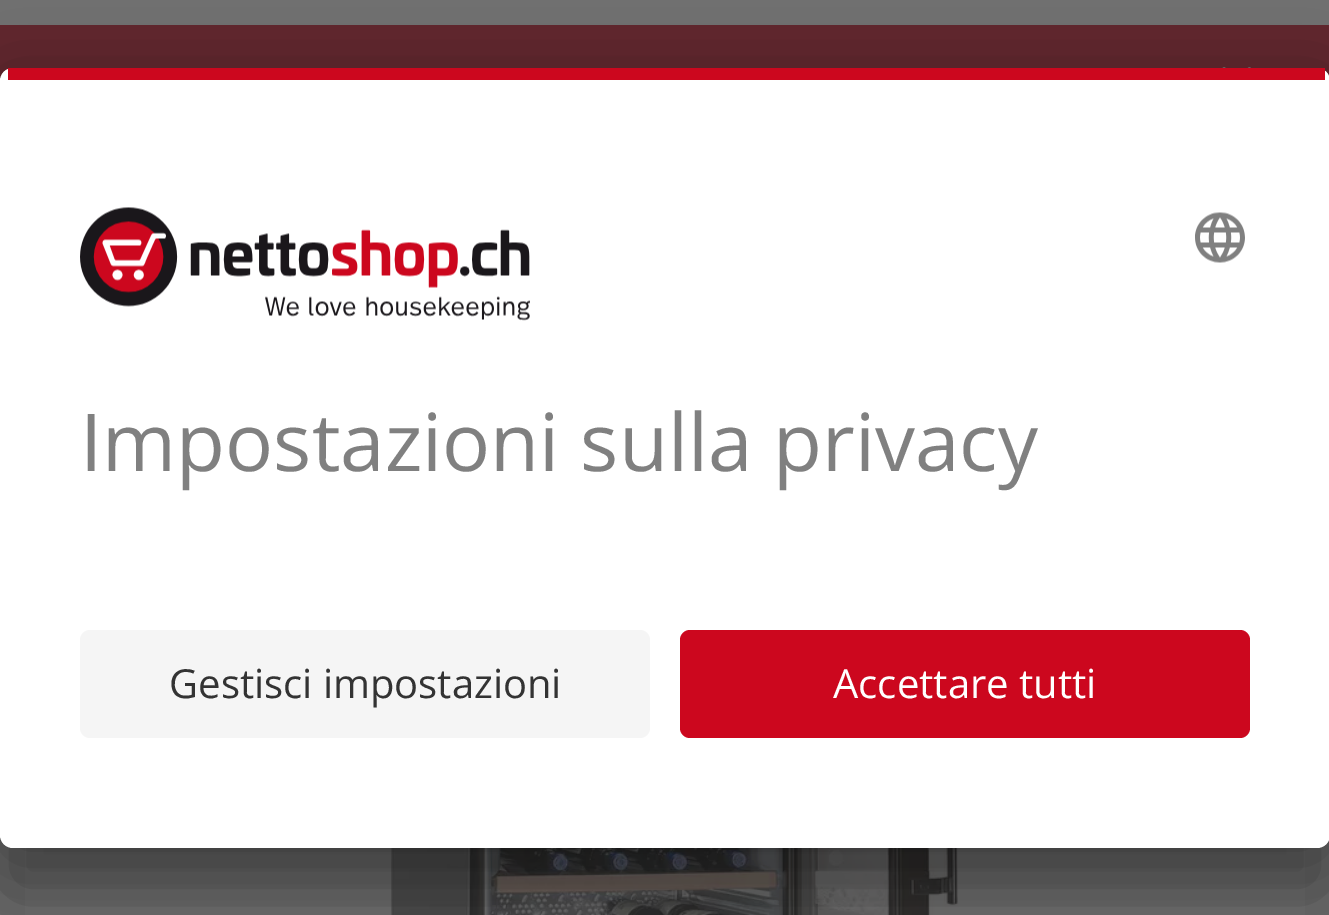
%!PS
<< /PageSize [1329 915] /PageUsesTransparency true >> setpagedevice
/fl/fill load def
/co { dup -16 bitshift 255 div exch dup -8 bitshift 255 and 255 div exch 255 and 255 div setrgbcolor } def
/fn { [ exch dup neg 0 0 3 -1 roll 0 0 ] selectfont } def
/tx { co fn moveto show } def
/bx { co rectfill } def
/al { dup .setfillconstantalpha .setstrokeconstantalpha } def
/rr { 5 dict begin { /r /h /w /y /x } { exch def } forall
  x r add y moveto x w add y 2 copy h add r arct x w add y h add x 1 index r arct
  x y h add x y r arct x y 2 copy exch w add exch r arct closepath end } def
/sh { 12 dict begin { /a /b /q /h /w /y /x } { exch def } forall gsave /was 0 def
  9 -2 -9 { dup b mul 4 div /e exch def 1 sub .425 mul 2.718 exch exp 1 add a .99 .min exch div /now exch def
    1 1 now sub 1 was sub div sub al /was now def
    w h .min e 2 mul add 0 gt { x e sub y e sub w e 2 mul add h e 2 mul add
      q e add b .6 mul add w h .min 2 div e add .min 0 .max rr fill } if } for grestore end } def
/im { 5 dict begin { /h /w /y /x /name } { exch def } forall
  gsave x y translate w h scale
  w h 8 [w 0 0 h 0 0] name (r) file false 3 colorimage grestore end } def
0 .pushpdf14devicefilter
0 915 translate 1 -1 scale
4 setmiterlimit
0 0 1329 915 16#6D6D6D bx
0 25 1329 56 16#61262D bx
0 0 1329 25 16#707070 bx
(media/1.raw) 1222 67 29 1 im
25 848 1280 67 16#707070 bx
(media/2.raw) 390 848 569 67 im
16#000000 co
0 118 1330 780 13 35 .3 sh
0 80 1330 780 13 32.5 .22 sh
16#FFFFFF co
0 68 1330 780 13 rr fl
8 68 1317 12 16#CC071E bx
(media/3.raw) 80 207 450 114 im
(media/4.raw) 1195 212 50 51 im
16#F5F5F5 co
80 630 570 108 10 rr fl
16#CC071E co
680 630 570 108 10 rr fl
(Impostazioni sulla privacy) 80 471 /OpenSans-Regular 80 16#808080 tx
(Gestisci impostazioni) 169 698 /OpenSans-Regular 40 16#333333 tx
(Accettare tutti) 833 698 /OpenSans-Regular 40 16#FFFFFF tx
.poppdf14devicefilter showpage
